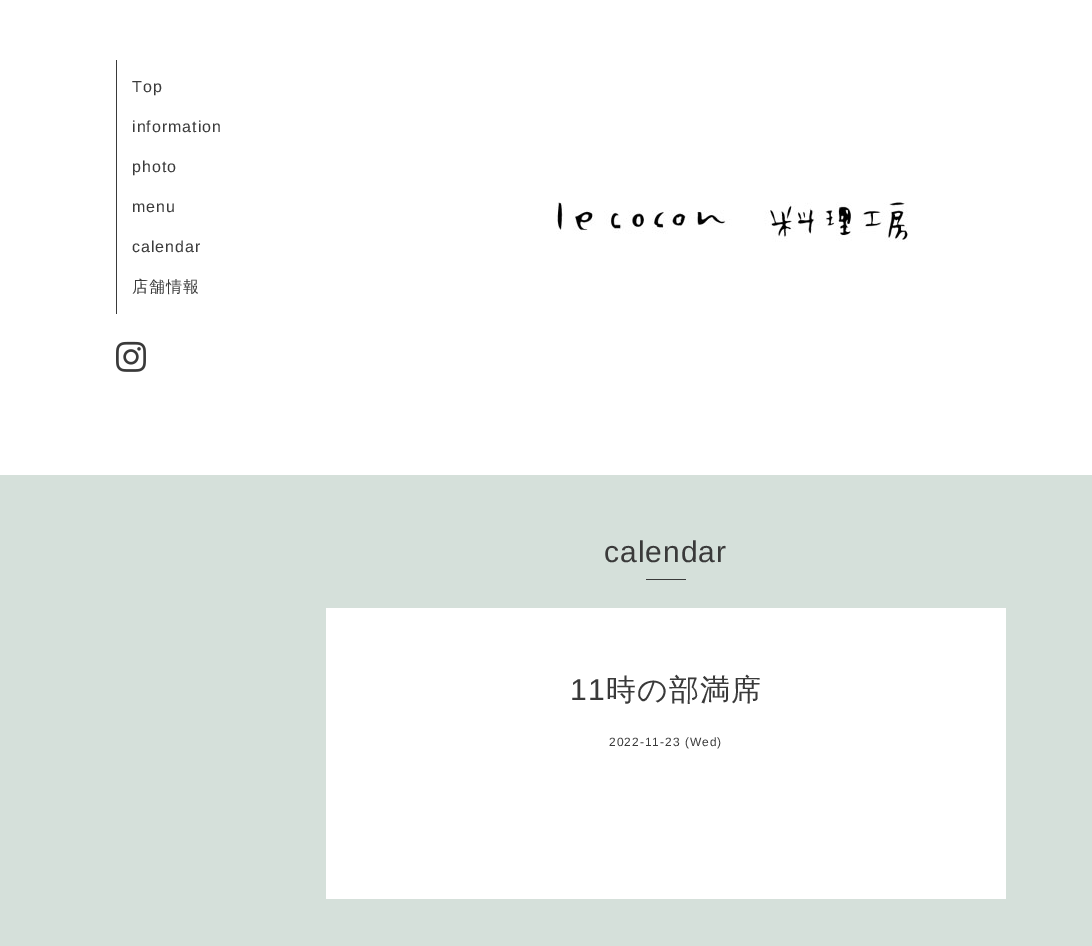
%!PS
<< /PageSize [1092 946] >> setpagedevice
/mt/moveto load def
/co { dup -16 bitshift 255 div exch dup -8 bitshift 255 and 255 div exch 255 and 255 div setrgbcolor } def
/fn { [ exch dup neg 0 0 3 -1 roll 0 0 ] selectfont } def
/bx { co rectfill } def
/im { 5 dict begin { /h /w /y /x /name } { exch def } forall
  gsave x y translate w h scale
  w h 8 [w 0 0 h 0 0] name (r) file false 3 colorimage grestore end } def
0 946 translate 1 -1 scale
4 setmiterlimit
0 0 1092 946 16#FFFFFF bx
116 60 1 254 16#3A3A3A bx
(media/1.raw) 116 341 30 31 im
(media/2.raw) 556 202 352 40 im
0 475 1092 471 16#D5E0DA bx
646 579 40 1 16#3A3A3A bx
326 608 680 291 16#FFFFFF bx
/LiberationSans-Regular 16 fn
16#3A3A3A co
132 92 mt 1 0 (Top) ashow
132 132 mt 1 0 (information) ashow
132 172 mt 1 0 (photo) ashow
132 212 mt 1 0 (menu) ashow
132 252 mt 1 0 (calendar) ashow
/WenQuanYiZenHei-Medium 16 fn
132 292 mt 1 0 (店舗情報) ashow
/LiberationSans-Regular 30 fn
604 562 mt 1 0 (calendar) ashow
570 700 mt 1 0 (11) ashow
/WenQuanYiZenHei-Medium 30 fn
606 700 mt 1 0 (時の部満席) ashow
/LiberationSans-Regular 12 fn
609 746 mt 1 0 (2022-11-23 \(Wed\)) ashow
showpage
